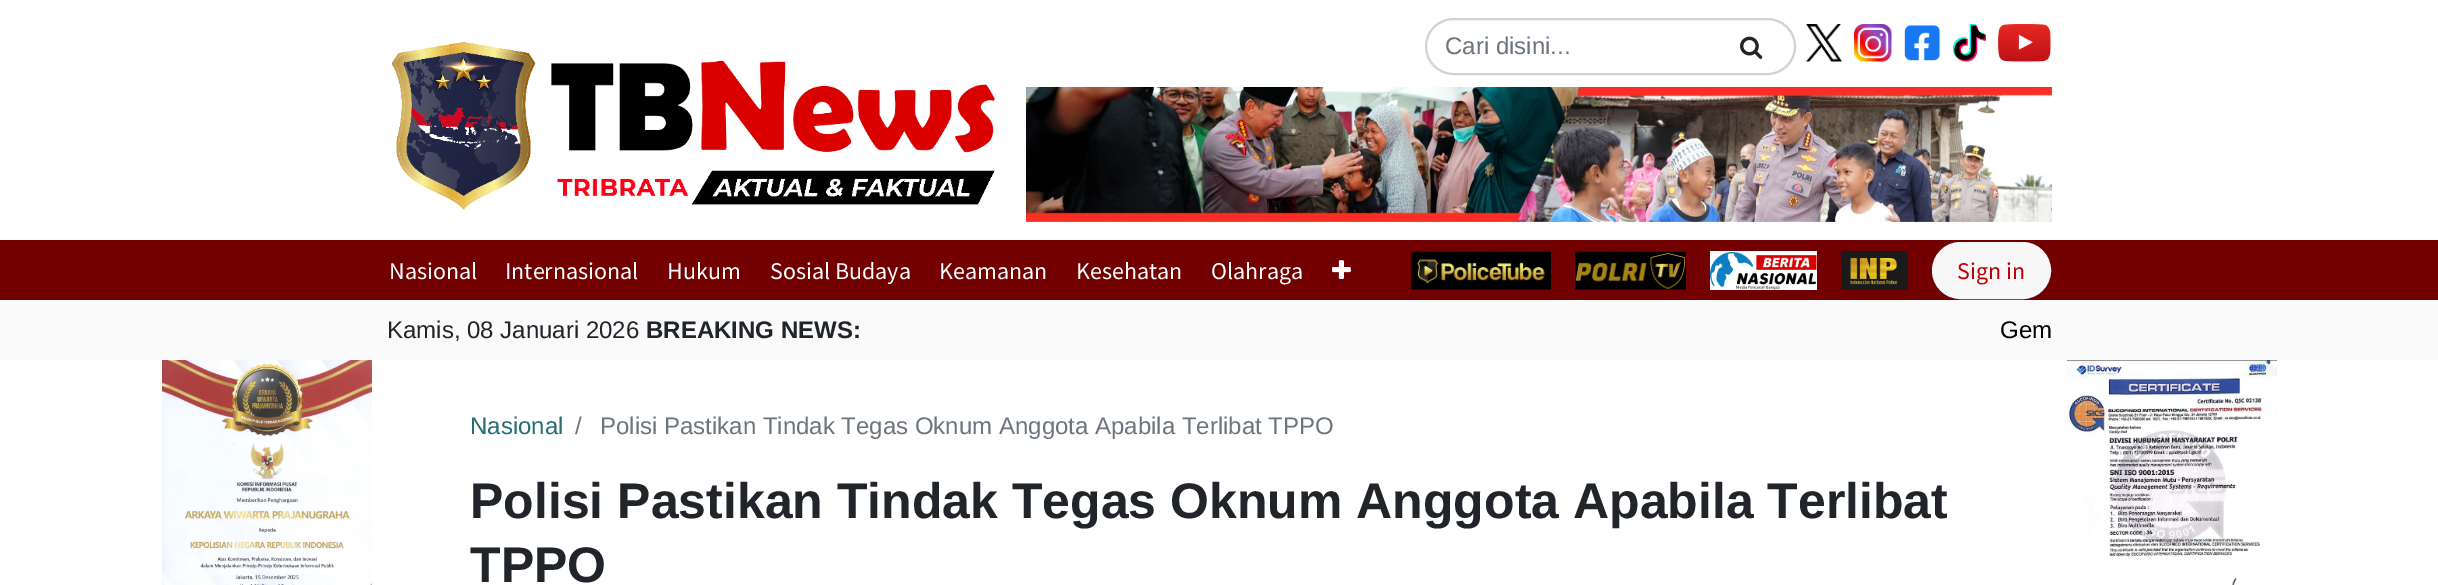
%!PS
<< /PageSize [2438 585] >> setpagedevice
/fl/fill load def
/st/stroke load def
/gs/gsave load def
/gr/grestore load def
/lw/setlinewidth load def
/co { dup -16 bitshift 255 div exch dup -8 bitshift 255 and 255 div exch 255 and 255 div setrgbcolor } def
/fn { [ exch dup neg 0 0 3 -1 roll 0 0 ] selectfont } def
/tx { co fn moveto show } def
/bx { co rectfill } def
/rr { 5 dict begin { /r /h /w /y /x } { exch def } forall
  x r add y moveto x w add y 2 copy h add r arct x w add y h add x 1 index r arct
  x y h add x y r arct x y 2 copy exch w add exch r arct closepath end } def
/im { 5 dict begin { /h /w /y /x /name } { exch def } forall
  gsave x y translate w h scale
  w h 8 [w 0 0 h 0 0] name (r) file false 3 colorimage grestore end } def
0 585 translate 1 -1 scale
4 setmiterlimit
0 0 2438 585 16#FFFFFF bx
(media/1.raw) 391 42 604 168 im
16#CED4DA co
2 lw
1426 19 369 55 27.5 rr st
(media/2.raw) 1740 36 23 23 im
(media/3.raw) 1806 24 36 38 im
(media/4.raw) 1854 24 38 38 im
(media/5.raw) 1904 24 37 37 im
(media/6.raw) 1953 24 33 38 im
(media/7.raw) 1998 24 53 38 im
(media/8.raw) 1026 87 1026 135 im
0 240 2438 60 16#730000 bx
(media/9.raw) 1332 260 19 19 im
1412 251 139 39 16#1A1A1A bx
(media/10.raw) 1411 252 140 38 im
1575 251 111 39 16#1A1A1A bx
(media/11.raw) 1575 252 111 38 im
1710 251 107 39 16#FFFFFF bx
(media/12.raw) 1710 252 107 38 im
1841 251 67 39 16#1A1A1A bx
(media/13.raw) 1850 258 48 27 im
16#F7F7F7 co
1933 243 117 55 27.5 rr gs fl gr
st
0 300 2438 60 16#FAFAFA bx
(media/14.raw) 162 360 210 225 im
(media/15.raw) 2067 360 210 225 im
(Cari disini...) 1445 54 /LiberationSans-Regular 24 16#6C757D tx
(Nasional) 389 279 /SourceSansPro-Regular 24 16#FFFFFF tx
(Internasional) 505 279 /SourceSansPro-Regular 24 16#FFFFFF tx
(Hukum) 667 279 /SourceSansPro-Regular 24 16#FFFFFF tx
(Sosial Budaya) 770 279 /SourceSansPro-Regular 24 16#FFFFFF tx
(Keamanan) 939 279 /SourceSansPro-Regular 24 16#FFFFFF tx
(Kesehatan) 1076 279 /SourceSansPro-Regular 24 16#FFFFFF tx
(Olahraga) 1211 279 /SourceSansPro-Regular 24 16#FFFFFF tx
(Sign in) 1957 279 /SourceSansPro-Regular 24 16#BE0106 tx
(Kamis, 08 Januari 2026) 387 338 /LiberationSans-Regular 24 16#212529 tx
(BREAKING NEWS:) 646 338 /LiberationSans-Bold 24 16#212529 tx
(Gem) 2000 338 /LiberationSans-Regular 24 16#000000 tx
(Nasional) 470 434 /LiberationSans-Regular 24 16#276E72 tx
(/) 575 434 /LiberationSans-Regular 24 16#6C757D tx
(Polisi Pastikan Tindak Tegas Oknum Anggota Apabila Terlibat TPPO) 600 434 /LiberationSans-Regular 24 16#6C757D tx
(Polisi Pastikan Tindak Tegas Oknum Anggota Apabila Terlibat) 470 518 /LiberationSans-Bold 50 16#212529 tx
(TPPO) 470 582 /LiberationSans-Bold 50 16#212529 tx
showpage
